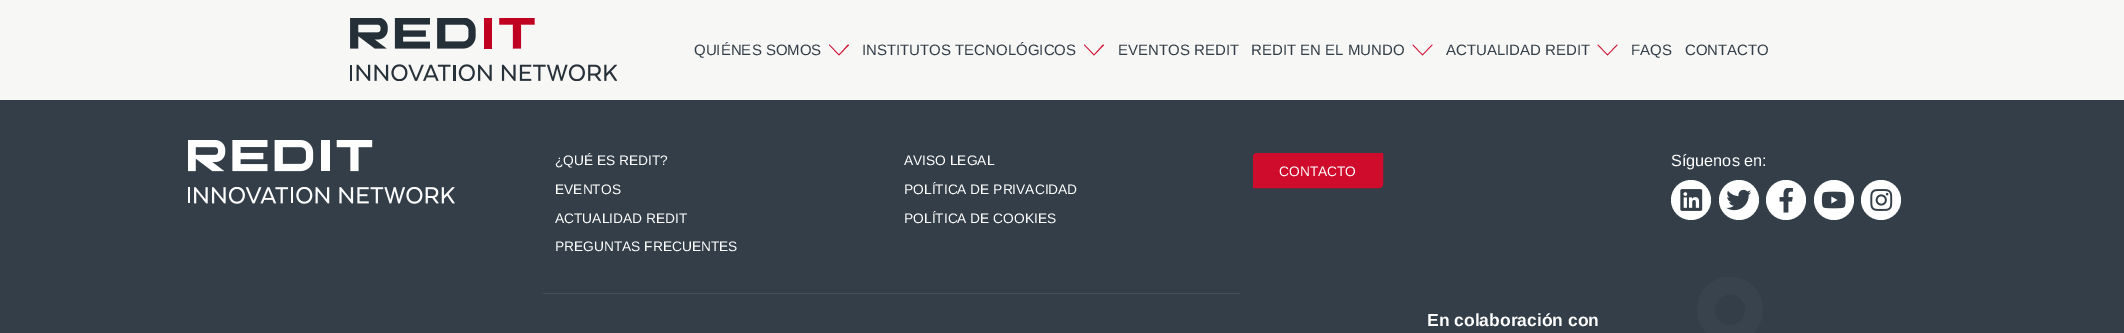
%!PS
<< /PageSize [2124 333] >> setpagedevice
/mt/moveto load def
/li/lineto load def
/ct/curveto load def
/cp/closepath load def
/fl/fill load def
/st/stroke load def
/gs/gsave load def
/gr/grestore load def
/co { dup -16 bitshift 255 div exch dup -8 bitshift 255 and 255 div exch 255 and 255 div setrgbcolor } def
/fn { [ exch dup neg 0 0 3 -1 roll 0 0 ] selectfont } def
/tx { co fn moveto show } def
/bx { co rectfill } def
/ci { newpath 0 360 arc closepath } def
/im { 5 dict begin { /h /w /y /x /name } { exch def } forall
  gsave x y translate w h scale
  w h 8 [w 0 0 h 0 0] name (r) file false 3 colorimage grestore end } def
0 333 translate 1 -1 scale
4 setmiterlimit
0 0 2124 333 16#333E48 bx
0 0 2124 100 16#F7F7F6 bx
(media/1.raw) 350 18 267 63 im
16#CF0C2C co
849 45 mt 839 55.5 li 829 45 li 829.5 44.5 li 839 54.5 li 848 44.5 li cp fl
1104 45 mt 1094 55.5 li 1084 45 li 1084.5 44.5 li 1094 54.5 li 1103 44.5 li cp fl
1432.5 45 mt 1422.5 55.5 li 1412.5 45 li 1413 44.5 li 1422.5 54.5 li 1432 44.5 li cp fl
1617.5 45 mt 1607.5 55.5 li 1597.5 45 li 1598 44.5 li 1607.5 54.5 li 1617 44.5 li cp fl
(media/2.raw) 188 140 267 64 im
1257 153.5 mt 1382 153.5 li 1382.5 153.5 1382.5 153.5 1382.5 154 ct 1382.5 184 li 1382.5 186 1381 187.5 1379 187.5 ct 1254 187.5 li 1253.5 187.5 1253.5 187.5 1253.5 187 ct 1253.5 157 li 1253.5 155 1255 153.5 1257 153.5 ct cp gs fl gr
st
16#FFFFFF co
1691 200 20 ci fl
(media/3.raw) 1680 189 23 22 im
1739 200 20 ci fl
(media/4.raw) 1726 189 25 22 im
1786 200 20 ci fl
(media/5.raw) 1779 188 14 25 im
1834 200 20 ci fl
(media/6.raw) 1821 191 25 18 im
1881 200 20 ci fl
(media/7.raw) 1870 189 23 22 im
543 293 697 1 16#454F58 bx
(media/8.raw) 1697 277 66 56 im
(QUIÉNES SOMOS) 694 55 /LiberationSans-Regular 15 16#333E48 tx
(INSTITUTOS TECNOLÓGICOS) 862 55 /LiberationSans-Regular 15 16#333E48 tx
(EVENTOS REDIT) 1118 55 /LiberationSans-Regular 15 16#333E48 tx
(REDIT EN EL MUNDO) 1251 55 /LiberationSans-Regular 15 16#333E48 tx
(ACTUALIDAD REDIT) 1446 55 /LiberationSans-Regular 15 16#333E48 tx
(FAQS) 1631 55 /LiberationSans-Regular 15 16#333E48 tx
(CONTACTO) 1685 55 /LiberationSans-Regular 15 16#333E48 tx
(¿QUÉ ES REDIT?) 555 165 /LiberationSans-Regular 13.75 16#FFFFFF tx
(EVENTOS) 555 194 /LiberationSans-Regular 13.75 16#FFFFFF tx
(ACTUALIDAD REDIT) 555 223 /LiberationSans-Regular 13.75 16#FFFFFF tx
(PREGUNTAS FRECUENTES) 555 251 /LiberationSans-Regular 13.75 16#FFFFFF tx
(AVISO LEGAL) 904 165 /LiberationSans-Regular 13.75 16#FFFFFF tx
(POLÍTICA DE PRIVACIDAD) 904 194 /LiberationSans-Regular 13.75 16#FFFFFF tx
(POLÍTICA DE COOKIES) 904 223 /LiberationSans-Regular 13.75 16#FFFFFF tx
(CONTACTO) 1279 176 /LiberationSans-Regular 13.75 16#FFFFFF tx
(Síguenos en:) 1671 166 /LiberationSans-Regular 16.25 16#FFFFFF tx
(En colaboración con) 1427 326 /LiberationSans-Bold 17.5 16#FFFFFF tx
showpage
